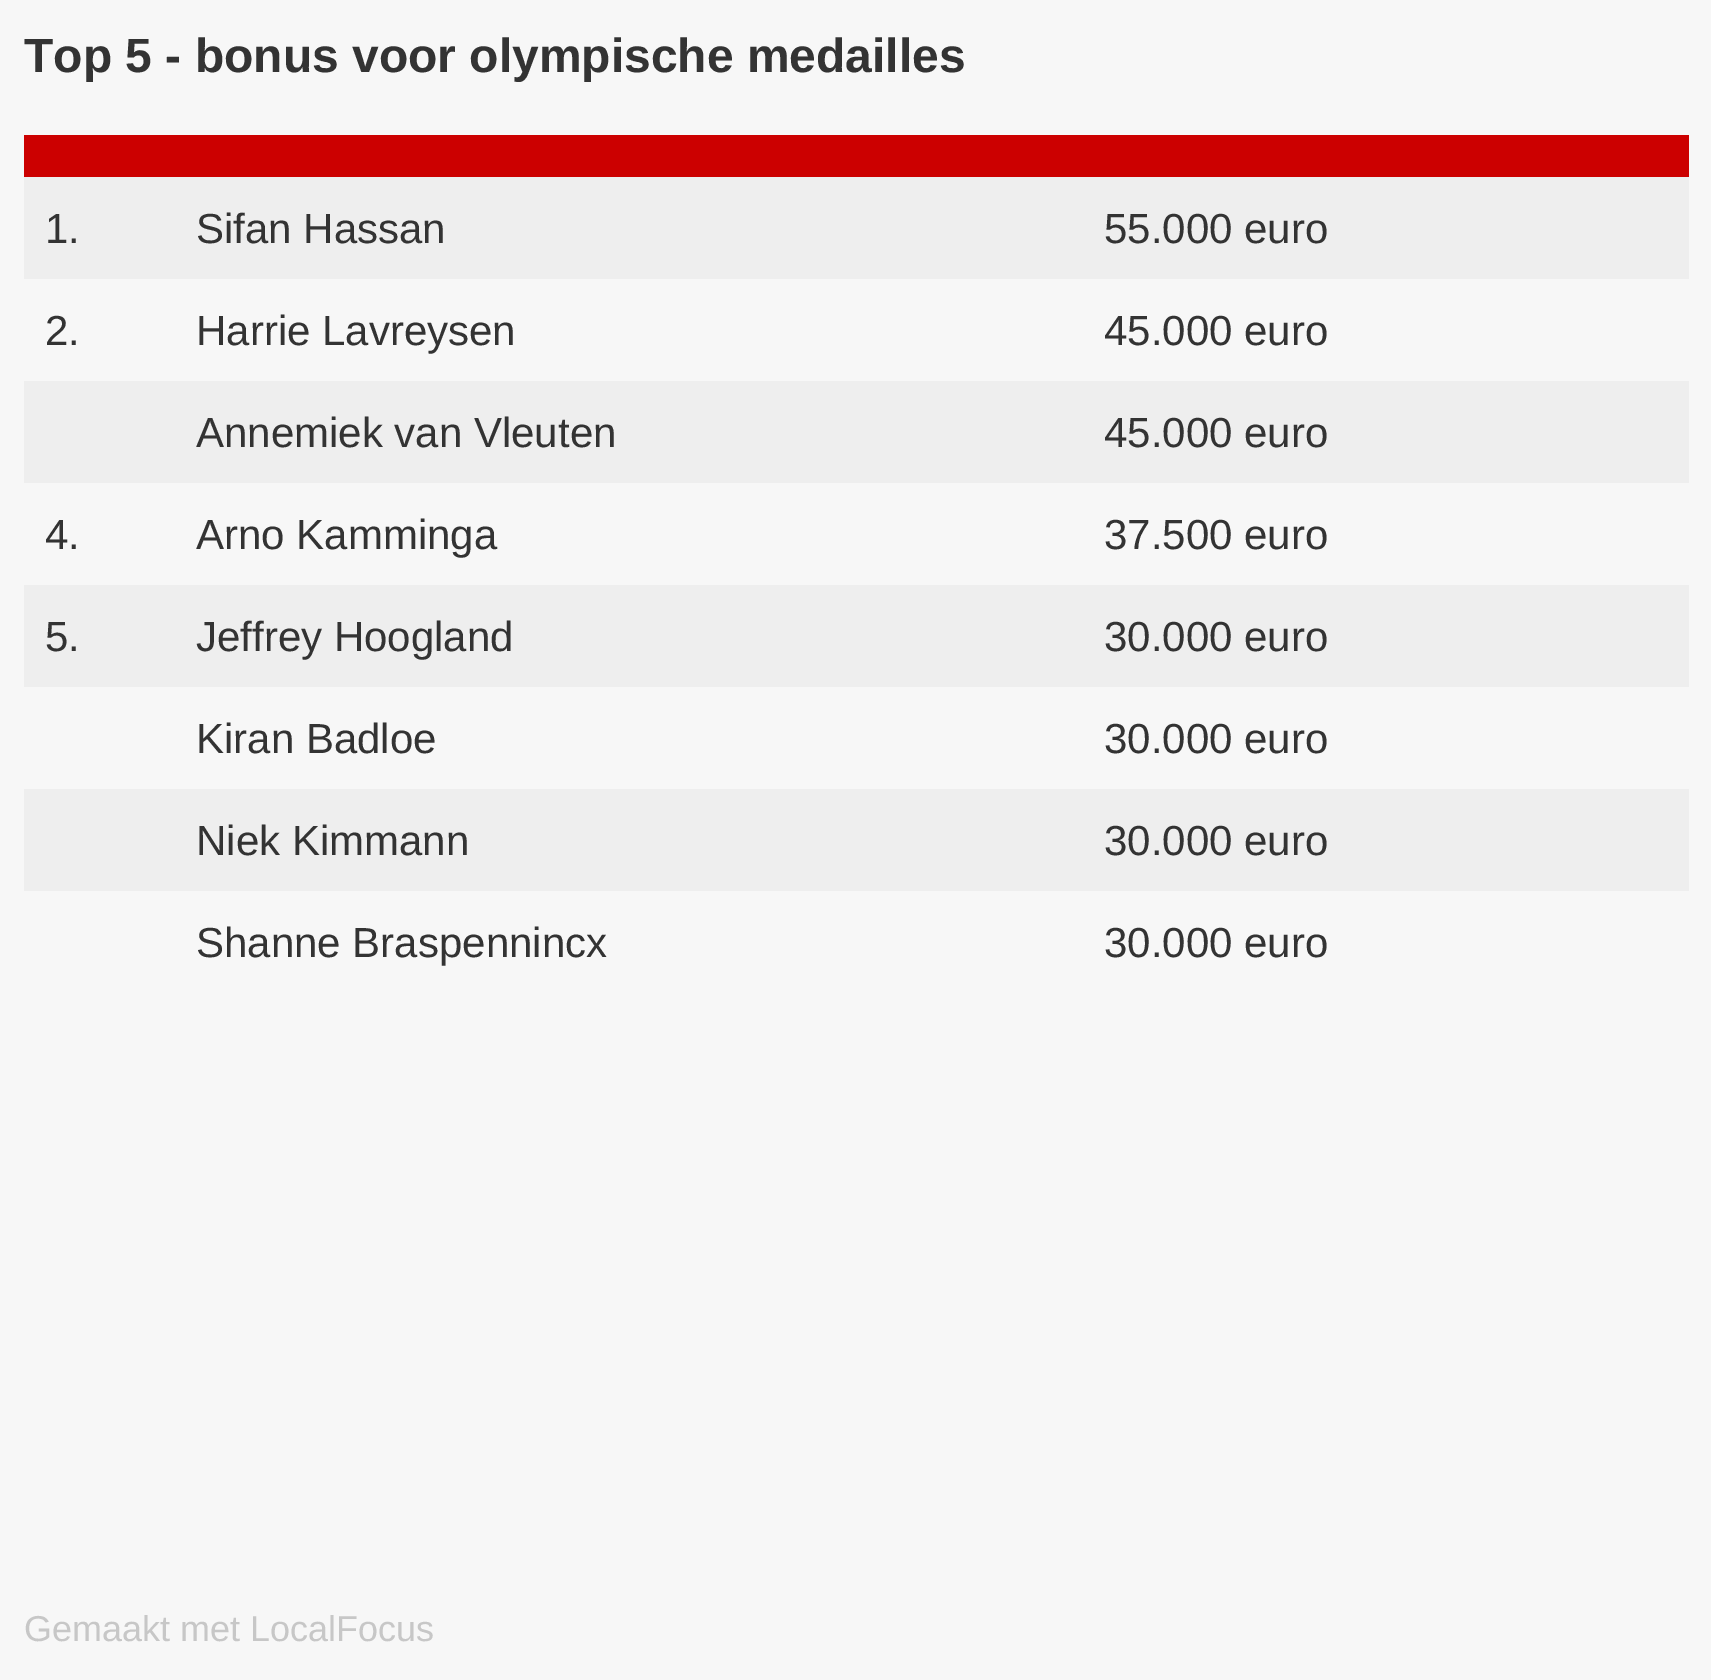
%!PS
<< /PageSize [1711 1680] >> setpagedevice
/co { dup -16 bitshift 255 div exch dup -8 bitshift 255 and 255 div exch 255 and 255 div setrgbcolor } def
/fn { [ exch dup neg 0 0 3 -1 roll 0 0 ] selectfont } def
/tx { co fn moveto show } def
/bx { co rectfill } def
0 1680 translate 1 -1 scale
4 setmiterlimit
0 0 1711 1680 16#F7F7F7 bx
24 135 1665 42 16#CC0000 bx
24 177 1665 102 16#EEEEEE bx
24 381 1665 102 16#EEEEEE bx
24 585 1665 102 16#EEEEEE bx
24 789 1665 102 16#EEEEEE bx
(Top 5 - bonus voor olympische medailles) 24 72 /Arimo-Bold 48 16#333333 tx
(1.) 45 243 /Arimo-Regular 42 16#333333 tx
(Sifan Hassan) 196 243 /Arimo-Regular 42 16#333333 tx
(55.000 euro) 1104 243 /Arimo-Regular 42 16#333333 tx
(2.) 45 345 /Arimo-Regular 42 16#333333 tx
(Harrie Lavreysen) 196 345 /Arimo-Regular 42 16#333333 tx
(45.000 euro) 1104 345 /Arimo-Regular 42 16#333333 tx
(Annemiek van Vleuten) 196 447 /Arimo-Regular 42 16#333333 tx
(45.000 euro) 1104 447 /Arimo-Regular 42 16#333333 tx
(4.) 45 549 /Arimo-Regular 42 16#333333 tx
(Arno Kamminga) 196 549 /Arimo-Regular 42 16#333333 tx
(37.500 euro) 1104 549 /Arimo-Regular 42 16#333333 tx
(5.) 45 651 /Arimo-Regular 42 16#333333 tx
(Jeffrey Hoogland) 196 651 /Arimo-Regular 42 16#333333 tx
(30.000 euro) 1104 651 /Arimo-Regular 42 16#333333 tx
(Kiran Badloe) 196 753 /Arimo-Regular 42 16#333333 tx
(30.000 euro) 1104 753 /Arimo-Regular 42 16#333333 tx
(Niek Kimmann) 196 855 /Arimo-Regular 42 16#333333 tx
(30.000 euro) 1104 855 /Arimo-Regular 42 16#333333 tx
(Shanne Braspennincx) 196 957 /Arimo-Regular 42 16#333333 tx
(30.000 euro) 1104 957 /Arimo-Regular 42 16#333333 tx
(Gemaakt met LocalFocus) 24 1641 /Arimo-Regular 36 16#C7C7C7 tx
showpage
